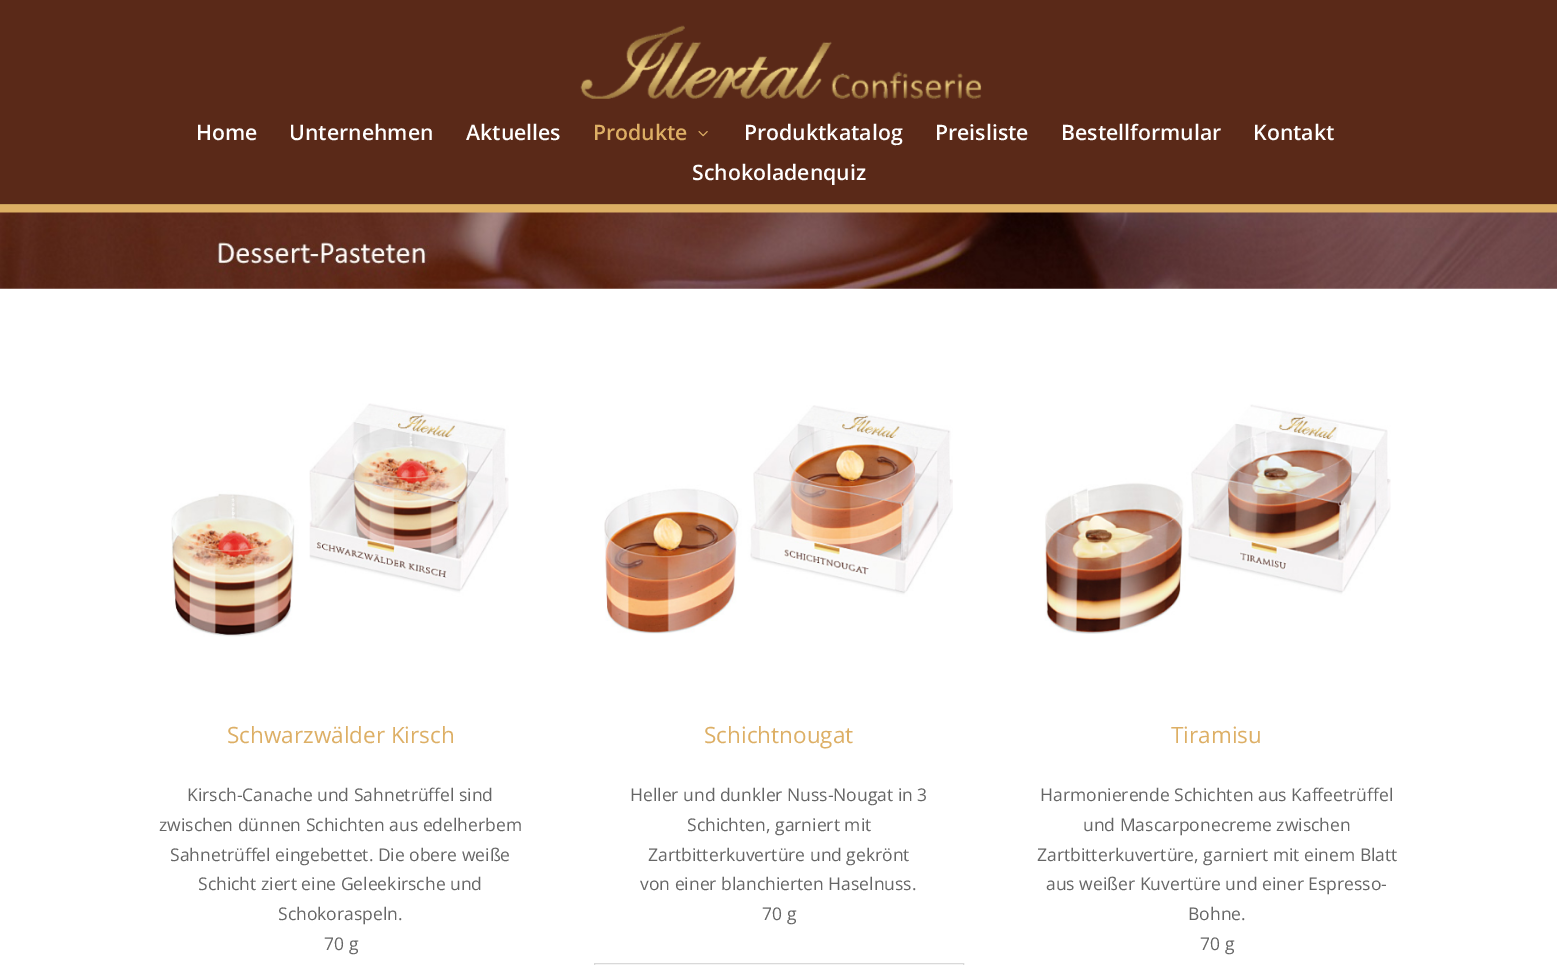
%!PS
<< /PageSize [1557 965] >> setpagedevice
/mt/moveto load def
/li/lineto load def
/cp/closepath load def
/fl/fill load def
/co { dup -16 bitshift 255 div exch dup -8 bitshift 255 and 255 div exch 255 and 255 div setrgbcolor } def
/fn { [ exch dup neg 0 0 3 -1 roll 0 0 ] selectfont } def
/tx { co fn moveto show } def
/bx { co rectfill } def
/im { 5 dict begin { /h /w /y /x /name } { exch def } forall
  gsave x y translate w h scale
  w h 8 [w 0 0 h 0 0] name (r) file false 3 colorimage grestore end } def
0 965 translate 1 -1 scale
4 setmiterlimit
0 0 1557 965 16#FFFFFF bx
16#C79E5A co
0 204 mt 0 205 li 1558 205 li 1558 1 li 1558 204 li cp fl
0 0 1557 204 16#5A2918 bx
(media/1.raw) 580 25 402 74 im
(media/2.raw) 698 131 10 6 im
0 205 1557 8 16#DDAF64 bx
(media/3.raw) 0 212 1557 77 im
(media/4.raw) 171 403 338 234 im
(media/5.raw) 604 405 349 229 im
16#D9D9D9 co
594.5 963.5 369 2 rectstroke
(media/6.raw) 1044 404 347 230 im
(Home) 196 140 /OpenSans-SemiBold 21.25 16#FFFFFF tx
(Unternehmen) 289 140 /OpenSans-SemiBold 21.25 16#FFFFFF tx
(Aktuelles) 466 140 /OpenSans-SemiBold 21.25 16#FFFFFF tx
(Produkte) 593 140 /OpenSans-SemiBold 21.25 16#DDAF65 tx
(Produktkatalog) 744 140 /OpenSans-SemiBold 21.25 16#FFFFFF tx
(Preisliste) 935 140 /OpenSans-SemiBold 21.25 16#FFFFFF tx
(Bestellformular) 1061 140 /OpenSans-SemiBold 21.25 16#FFFFFF tx
(Kontakt) 1253 140 /OpenSans-SemiBold 21.25 16#FFFFFF tx
(Schokoladenquiz) 692 180 /OpenSans-SemiBold 21.25 16#FFFFFF tx
(Schwarzwälder Kirsch) 227 743 /OpenSans-Regular 22.5 16#DDAF65 tx
(Kirsch-Canache und Sahnetrüffel sind) 187 801 /OpenSans-Regular 17.5 16#666666 tx
(zwischen dünnen Schichten aus edelherbem) 159 831 /OpenSans-Regular 17.5 16#666666 tx
(Sahnetrüffel eingebettet. Die obere weiße) 170 861 /OpenSans-Regular 17.5 16#666666 tx
(Schicht ziert eine Geleekirsche und) 198 890 /OpenSans-Regular 17.5 16#666666 tx
(Schokoraspeln.) 278 920 /OpenSans-Regular 17.5 16#666666 tx
(70 g) 324 950 /OpenSans-Regular 17.5 16#666666 tx
(Schichtnougat) 704 743 /OpenSans-Regular 22.5 16#DDAF65 tx
(Heller und dunkler Nuss-Nougat in 3) 630 801 /OpenSans-Regular 17.5 16#666666 tx
(Schichten, garniert mit) 687 831 /OpenSans-Regular 17.5 16#666666 tx
(Zartbitterkuvertüre und gekrönt) 648 861 /OpenSans-Regular 17.5 16#666666 tx
(von einer blanchierten Haselnuss.) 640 890 /OpenSans-Regular 17.5 16#666666 tx
(70 g) 762 920 /OpenSans-Regular 17.5 16#666666 tx
(Tiramisu) 1171 743 /OpenSans-Regular 22.5 16#DDAF65 tx
(Harmonierende Schichten aus Kaffeetrüffel) 1040 801 /OpenSans-Regular 17.5 16#666666 tx
(und Mascarponecreme zwischen) 1083 831 /OpenSans-Regular 17.5 16#666666 tx
(Zartbitterkuvertüre, garniert mit einem Blatt) 1037 861 /OpenSans-Regular 17.5 16#666666 tx
(aus weißer Kuvertüre und einer Espresso-) 1046 890 /OpenSans-Regular 17.5 16#666666 tx
(Bohne.) 1188 920 /OpenSans-Regular 17.5 16#666666 tx
(70 g) 1200 950 /OpenSans-Regular 17.5 16#666666 tx
showpage
